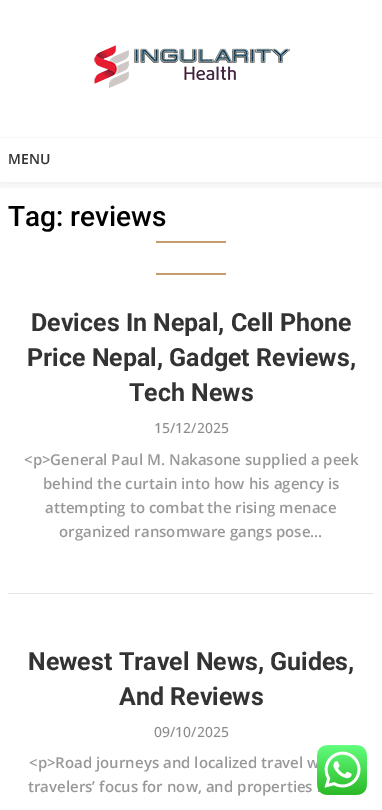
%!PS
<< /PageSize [382 810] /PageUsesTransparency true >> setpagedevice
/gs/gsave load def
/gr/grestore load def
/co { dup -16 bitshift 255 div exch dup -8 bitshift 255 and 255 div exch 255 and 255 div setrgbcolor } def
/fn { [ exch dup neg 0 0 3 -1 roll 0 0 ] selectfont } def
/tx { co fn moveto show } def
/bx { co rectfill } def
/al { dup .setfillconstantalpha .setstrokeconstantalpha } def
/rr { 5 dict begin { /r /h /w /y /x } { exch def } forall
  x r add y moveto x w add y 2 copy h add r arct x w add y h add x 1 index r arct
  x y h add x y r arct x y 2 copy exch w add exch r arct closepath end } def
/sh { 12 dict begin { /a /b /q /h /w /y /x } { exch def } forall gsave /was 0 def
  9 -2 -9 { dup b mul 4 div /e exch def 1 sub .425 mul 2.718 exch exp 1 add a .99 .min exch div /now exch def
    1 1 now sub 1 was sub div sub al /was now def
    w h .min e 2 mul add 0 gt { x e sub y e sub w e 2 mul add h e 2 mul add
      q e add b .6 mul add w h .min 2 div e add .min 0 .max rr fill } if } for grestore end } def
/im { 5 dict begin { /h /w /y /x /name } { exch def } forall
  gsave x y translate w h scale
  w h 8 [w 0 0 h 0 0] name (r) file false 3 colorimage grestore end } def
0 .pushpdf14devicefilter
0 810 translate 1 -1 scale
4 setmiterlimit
0 0 382 810 16#FFFFFF bx
gs
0 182 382 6 rectclip
16#000000 co
0 0 382 182 0 7.5 .1 sh
gr
(media/1.raw) 94 45 196 43 im
0 137 382 1 16#F7F7F7 bx
156 241 70 2 16#C69C6D bx
156 273 70 2 16#C69C6D bx
8 593 366 1 16#E6E6E6 bx
(MENU) 8 164 /OpenSans-SemiBold 14 16#333333 tx
(Tag: reviews) 8 226 /Roboto-Medium 28 16#000000 tx
(Devices In Nepal, Cell Phone) 31 331 /Roboto-Bold 25 16#333333 tx
(Price Nepal, Gadget Reviews,) 27 366 /Roboto-Bold 25 16#333333 tx
(Tech News) 129 401 /Roboto-Bold 25 16#333333 tx
(15/12/2025) 154 433 /OpenSans-Medium 14 16#8C8C8C tx
(<p>General Paul M. Nakasone supplied a peek) 24 465 /OpenSans-SemiBold 15 16#989898 tx
(behind the curtain into how his agency is) 43 489 /OpenSans-SemiBold 15 16#989898 tx
(attempting to combat the rising menace) 45 513 /OpenSans-SemiBold 15 16#989898 tx
(organized ransomware gangs pose...) 59 537 /OpenSans-SemiBold 15 16#989898 tx
(Newest Travel News, Guides,) 28 670 /Roboto-Bold 25 16#333333 tx
(And Reviews) 119 705 /Roboto-Bold 25 16#333333 tx
(09/10/2025) 154 737 /OpenSans-Medium 14 16#8C8C8C tx
(<p>Road journeys and localized travel w) 29 768 /OpenSans-SemiBold 15 16#989898 tx
(travelers’ focus for now, and properties) 28 792 /OpenSans-SemiBold 15 16#989898 tx
(media/2.raw) 317 745 50 50 im
.poppdf14devicefilter showpage
